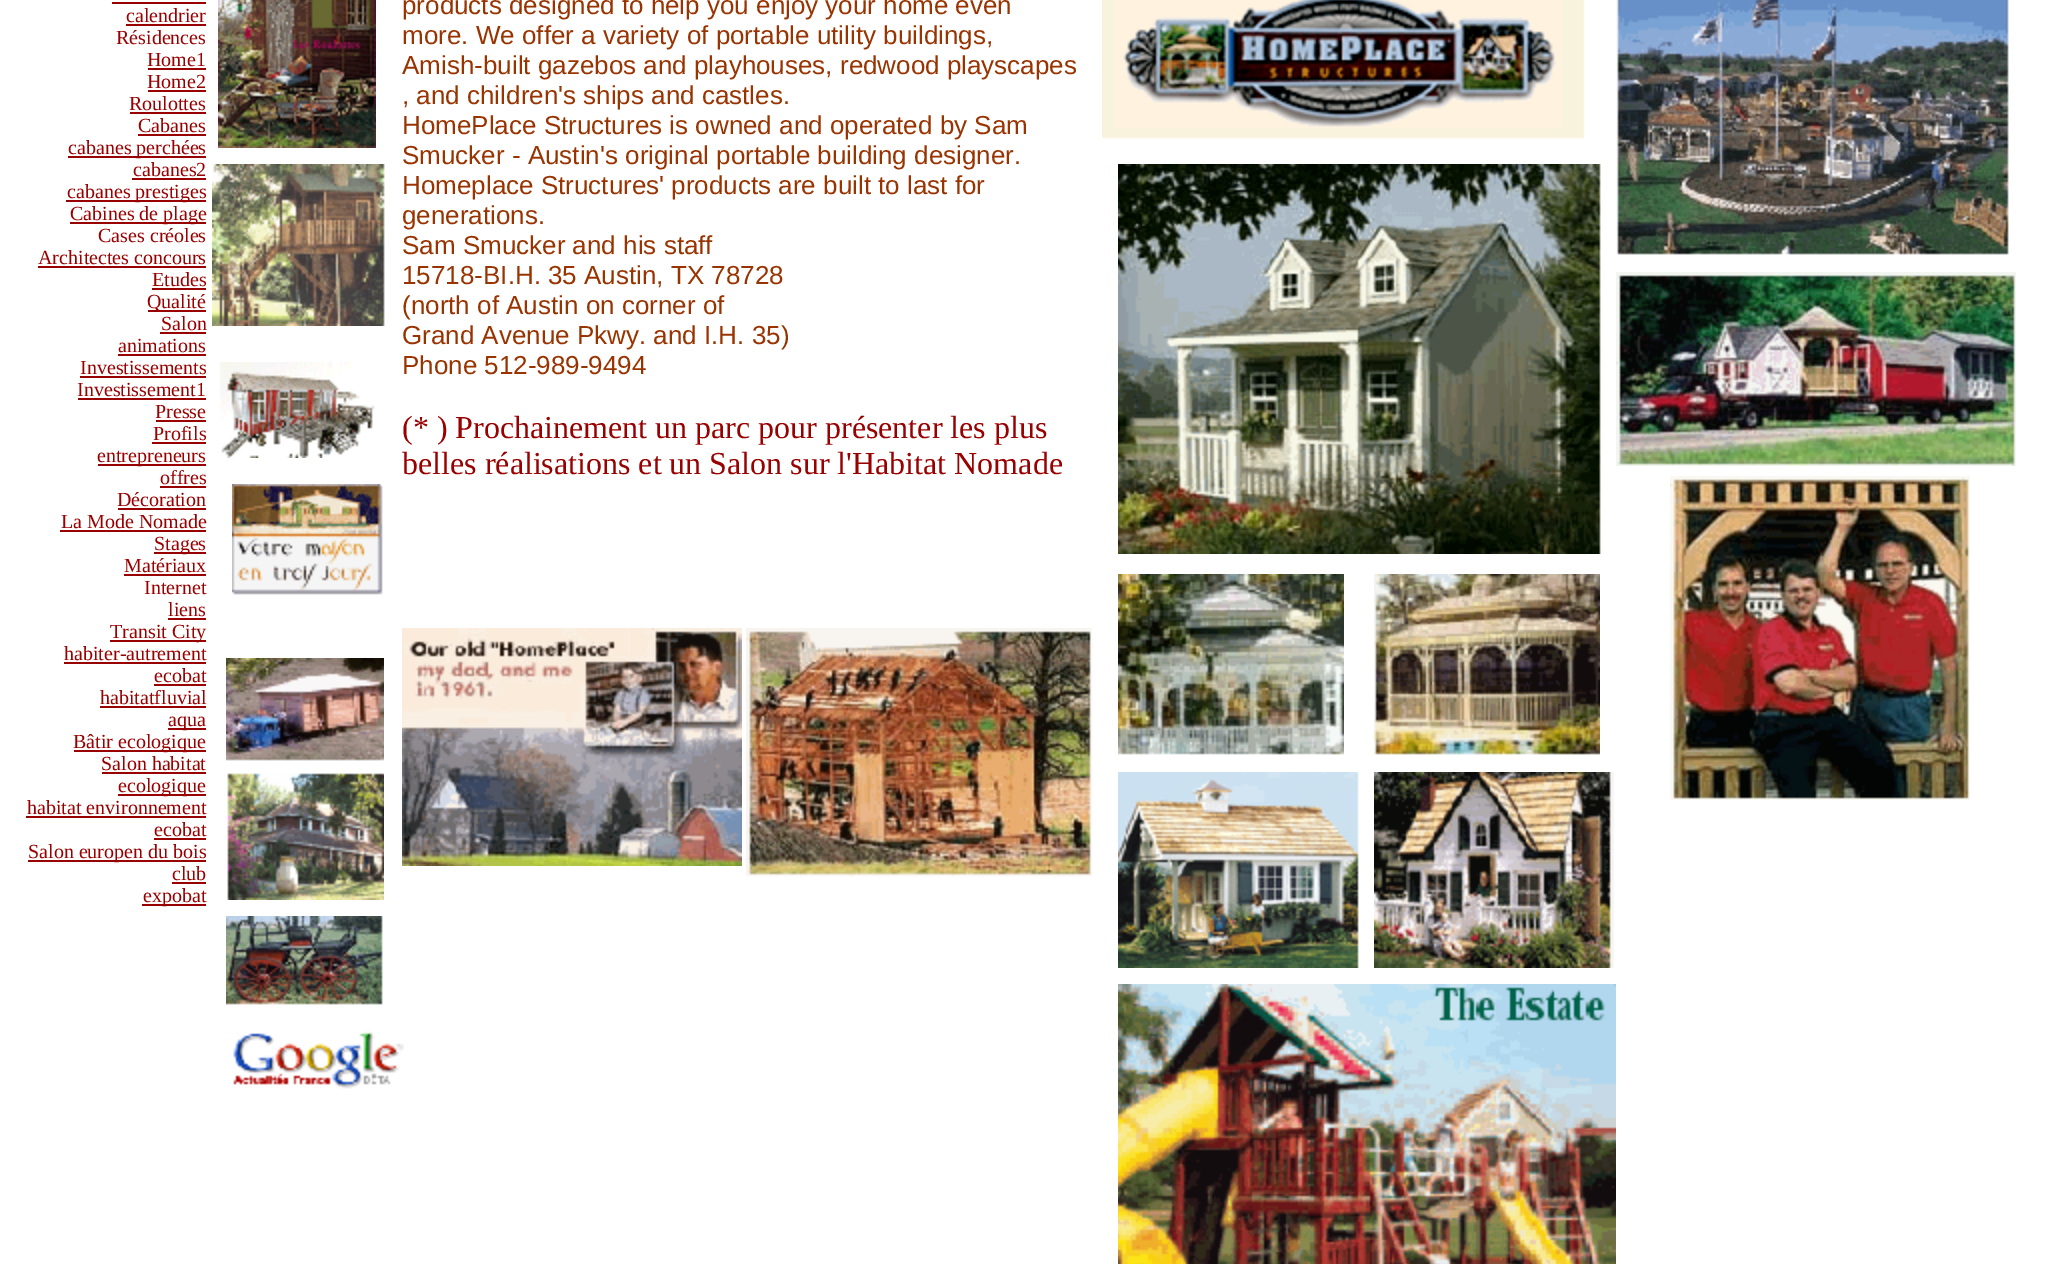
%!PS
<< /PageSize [2063 1264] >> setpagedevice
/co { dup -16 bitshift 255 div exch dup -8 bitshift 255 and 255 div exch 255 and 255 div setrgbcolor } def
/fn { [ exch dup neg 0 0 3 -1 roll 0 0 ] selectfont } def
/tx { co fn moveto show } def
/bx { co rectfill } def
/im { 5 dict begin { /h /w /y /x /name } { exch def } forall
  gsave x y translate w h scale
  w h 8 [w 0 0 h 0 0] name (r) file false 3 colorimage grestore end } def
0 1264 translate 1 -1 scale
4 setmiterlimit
0 0 2063 1264 16#FFFFFF bx
112 2 94 2 16#990000 bx
126 24 80 2 16#990000 bx
148 68 58 2 16#990000 bx
148 90 58 2 16#990000 bx
130 112 76 2 16#990000 bx
138 134 68 2 16#990000 bx
68 156 138 2 16#990000 bx
132 178 74 2 16#990000 bx
66 200 140 2 16#990000 bx
70 222 136 2 16#990000 bx
38 266 168 2 16#990000 bx
152 288 54 2 16#990000 bx
148 310 58 2 16#990000 bx
160 332 46 2 16#990000 bx
118 354 88 2 16#990000 bx
80 376 126 2 16#990000 bx
78 398 128 2 16#990000 bx
156 420 50 2 16#990000 bx
152 442 54 2 16#990000 bx
98 464 108 2 16#990000 bx
160 486 46 2 16#990000 bx
118 508 88 2 16#990000 bx
60 530 146 2 16#990000 bx
154 552 52 2 16#990000 bx
124 574 82 2 16#990000 bx
168 618 38 2 16#990000 bx
110 640 96 2 16#990000 bx
64 662 142 2 16#990000 bx
154 684 52 2 16#990000 bx
100 706 106 2 16#990000 bx
168 728 38 2 16#990000 bx
74 750 132 2 16#990000 bx
102 772 104 2 16#990000 bx
118 794 88 2 16#990000 bx
26 816 180 2 16#990000 bx
154 838 52 2 16#990000 bx
28 860 178 2 16#990000 bx
172 882 34 2 16#990000 bx
142 904 64 2 16#990000 bx
(media/1.raw) 218 0 158 148 im
(media/2.raw) 1102 0 483 139 im
(media/3.raw) 1616 0 393 255 im
(media/4.raw) 212 164 173 162 im
(media/5.raw) 1118 164 483 390 im
(media/6.raw) 1616 272 400 194 im
(media/7.raw) 219 362 156 96 im
(media/8.raw) 232 484 151 111 im
(media/9.raw) 1670 476 300 324 im
(media/10.raw) 226 658 158 103 im
(media/11.raw) 402 628 340 238 im
(media/12.raw) 746 628 347 249 im
(media/13.raw) 1118 574 226 181 im
(media/14.raw) 1374 574 226 181 im
(media/15.raw) 227 773 157 127 im
(media/16.raw) 1118 772 241 196 im
(media/17.raw) 1374 772 240 196 im
(media/18.raw) 226 916 157 89 im
(media/19.raw) 233 1031 171 58 im
(media/20.raw) 1118 984 498 280 im
(calendrier) 126 22 /LiberationSerif-Regular 20 16#990000 tx
(Résidences) 116 44 /LiberationSerif-Regular 20 16#990000 tx
(Home1) 147 66 /LiberationSerif-Regular 20 16#990000 tx
(Home2) 147 88 /LiberationSerif-Regular 20 16#990000 tx
(Roulottes) 129 110 /LiberationSerif-Regular 20 16#990000 tx
(Cabanes) 138 132 /LiberationSerif-Regular 20 16#990000 tx
(cabanes perchées) 68 154 /LiberationSerif-Regular 20 16#990000 tx
(cabanes2) 133 176 /LiberationSerif-Regular 20 16#990000 tx
(cabanes prestiges) 67 198 /LiberationSerif-Regular 20 16#990000 tx
(Cabines de plage) 70 220 /LiberationSerif-Regular 20 16#990000 tx
(Cases créoles) 98 242 /LiberationSerif-Regular 20 16#990000 tx
(Architectes concours) 38 264 /LiberationSerif-Regular 20 16#990000 tx
(Etudes) 152 286 /LiberationSerif-Regular 20 16#990000 tx
(Qualité) 147 308 /LiberationSerif-Regular 20 16#990000 tx
(Salon) 161 330 /LiberationSerif-Regular 20 16#990000 tx
(animations) 118 352 /LiberationSerif-Regular 20 16#990000 tx
(Investissements) 80 374 /LiberationSerif-Regular 20 16#990000 tx
(Investissement1) 77 396 /LiberationSerif-Regular 20 16#990000 tx
(Presse) 155 418 /LiberationSerif-Regular 20 16#990000 tx
(Profils) 153 440 /LiberationSerif-Regular 20 16#990000 tx
(entrepreneurs) 97 462 /LiberationSerif-Regular 20 16#990000 tx
(offres) 160 484 /LiberationSerif-Regular 20 16#990000 tx
(Décoration) 117 506 /LiberationSerif-Regular 20 16#990000 tx
(La Mode Nomade) 61 528 /LiberationSerif-Regular 20 16#990000 tx
(Stages) 154 550 /LiberationSerif-Regular 20 16#990000 tx
(Matériaux) 124 572 /LiberationSerif-Regular 20 16#990000 tx
(Internet) 144 594 /LiberationSerif-Regular 20 16#990000 tx
(liens) 168 616 /LiberationSerif-Regular 20 16#990000 tx
(Transit City) 110 638 /LiberationSerif-Regular 20 16#990000 tx
(habiter-autrement) 64 660 /LiberationSerif-Regular 20 16#990000 tx
(ecobat) 154 682 /LiberationSerif-Regular 20 16#990000 tx
(habitatfluvial) 100 704 /LiberationSerif-Regular 20 16#990000 tx
(aqua) 168 726 /LiberationSerif-Regular 20 16#990000 tx
(Bâtir ecologique) 73 748 /LiberationSerif-Regular 20 16#990000 tx
(Salon habitat) 101 770 /LiberationSerif-Regular 20 16#990000 tx
(ecologique) 118 792 /LiberationSerif-Regular 20 16#990000 tx
(habitat environnement) 27 814 /LiberationSerif-Regular 20 16#990000 tx
(ecobat) 154 836 /LiberationSerif-Regular 20 16#990000 tx
(Salon europen du bois) 28 858 /LiberationSerif-Regular 20 16#990000 tx
(club) 172 880 /LiberationSerif-Regular 20 16#990000 tx
(expobat) 143 902 /LiberationSerif-Regular 20 16#990000 tx
(products designed to help you enjoy your home even) 402 14 /LiberationSans-Regular 26 16#993300 tx
(more. We offer a variety of portable utility buildings,) 402 44 /LiberationSans-Regular 26 16#993300 tx
(Amish-built gazebos and playhouses, redwood playscapes) 402 74 /LiberationSans-Regular 26 16#993300 tx
(, and children's ships and castles.) 402 104 /LiberationSans-Regular 26 16#993300 tx
(HomePlace Structures is owned and operated by Sam) 402 134 /LiberationSans-Regular 26 16#993300 tx
(Smucker - Austin's original portable building designer.) 402 164 /LiberationSans-Regular 26 16#993300 tx
(Homeplace Structures' products are built to last for) 402 194 /LiberationSans-Regular 26 16#993300 tx
(generations.) 402 224 /LiberationSans-Regular 26 16#993300 tx
(Sam Smucker and his staff) 402 254 /LiberationSans-Regular 26 16#993300 tx
(15718-BI.H. 35 Austin, TX 78728) 402 284 /LiberationSans-Regular 26 16#993300 tx
(\(north of Austin on corner of) 402 314 /LiberationSans-Regular 26 16#993300 tx
(Grand Avenue Pkwy. and I.H. 35\)) 402 344 /LiberationSans-Regular 26 16#993300 tx
(Phone 512-989-9494) 402 374 /LiberationSans-Regular 26 16#993300 tx
(\(* \) Prochainement un parc pour présenter les plus) 402 438 /LiberationSerif-Regular 32 16#990000 tx
(belles réalisations et un Salon sur l'Habitat Nomade) 402 474 /LiberationSerif-Regular 32 16#990000 tx
showpage
